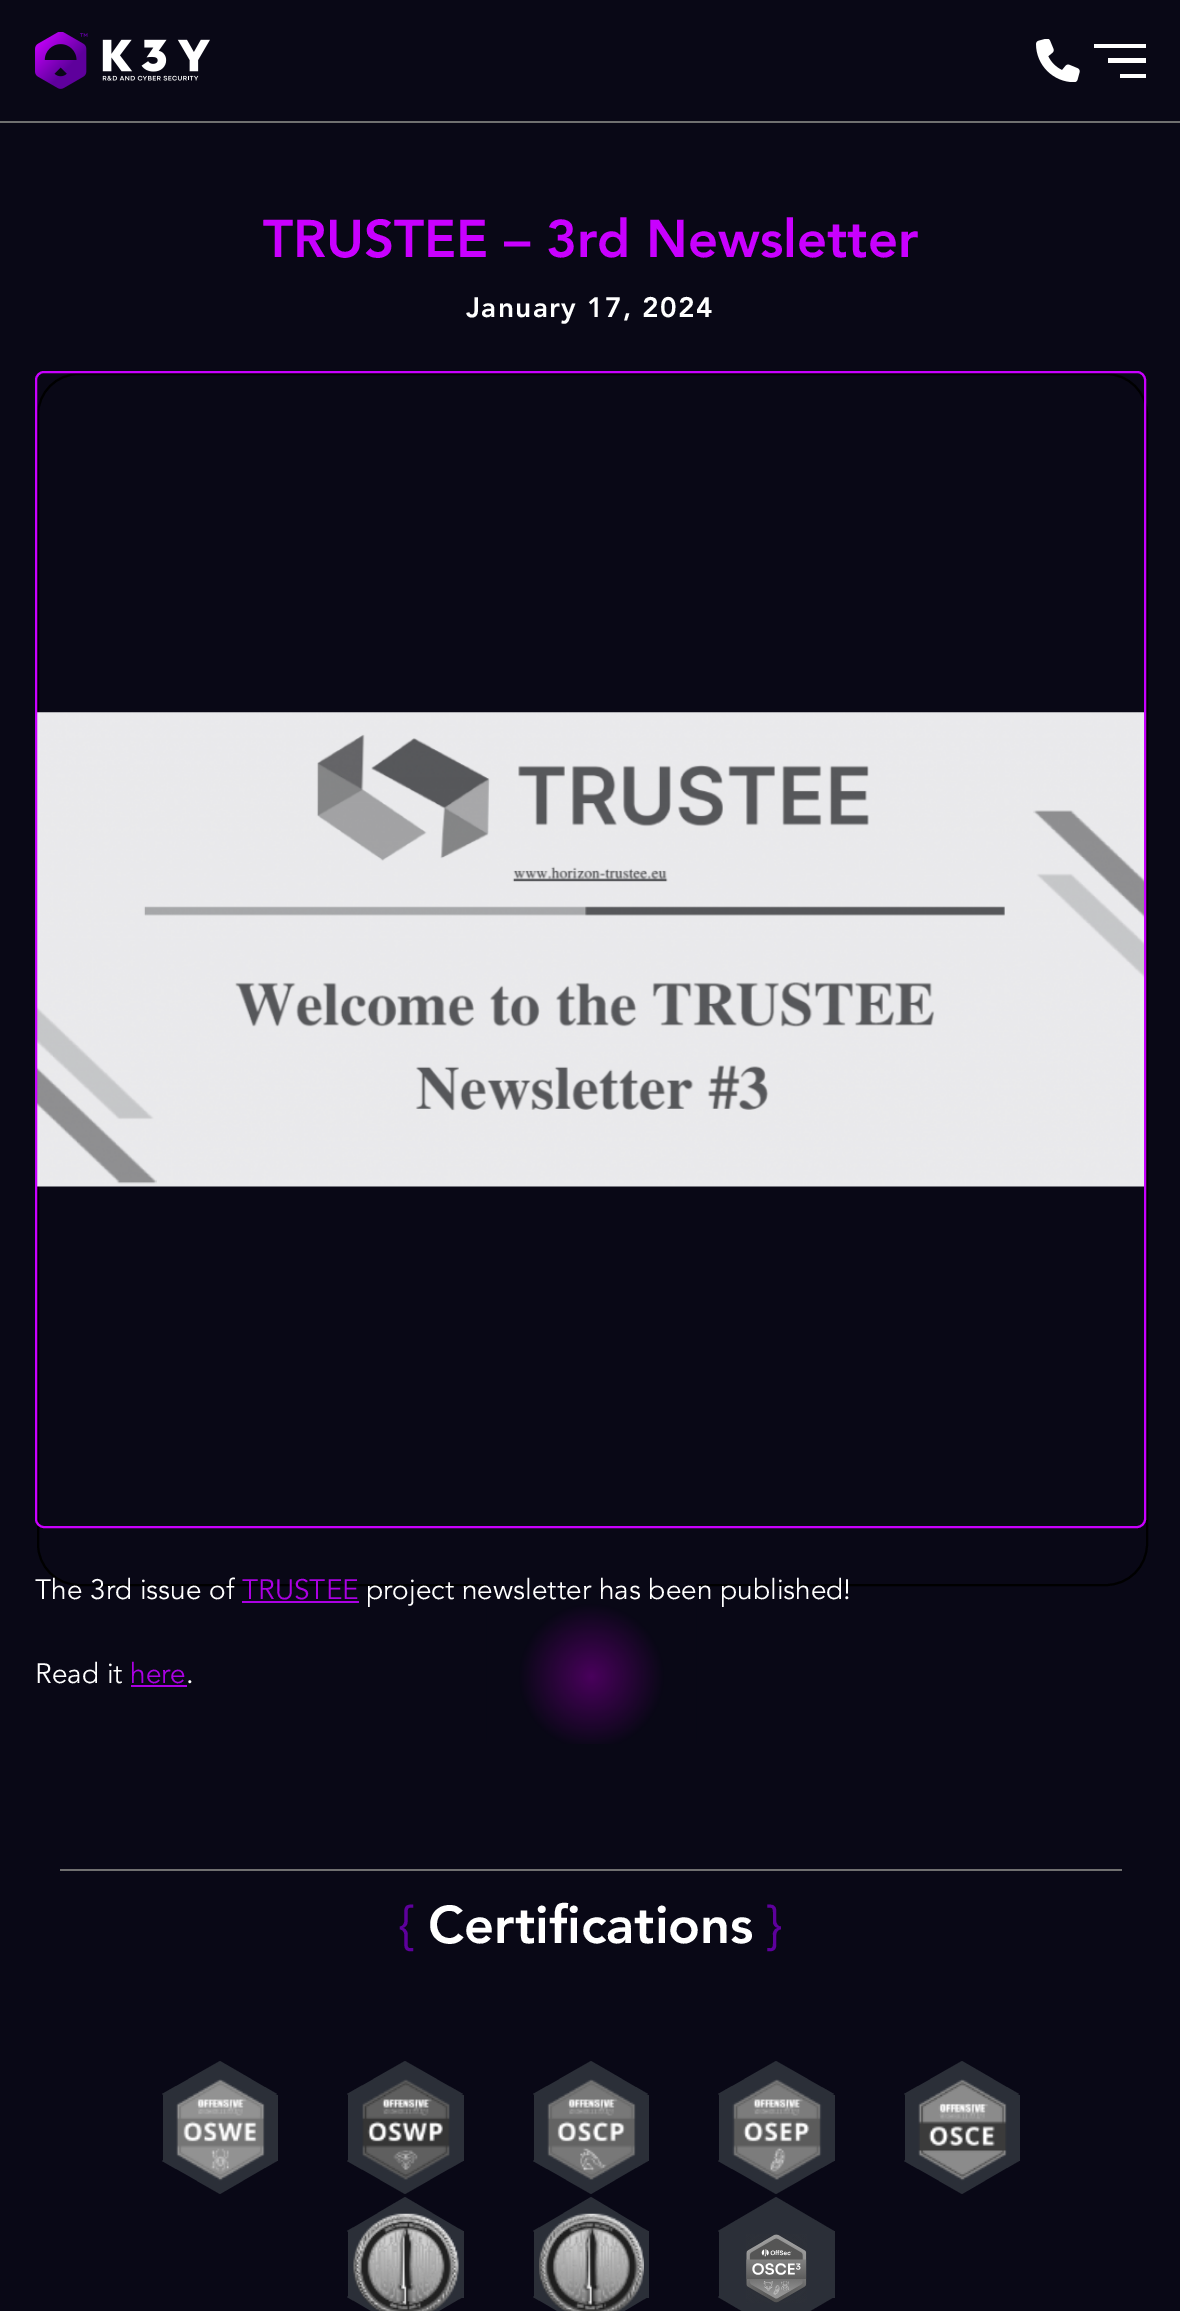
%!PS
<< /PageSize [1180 2311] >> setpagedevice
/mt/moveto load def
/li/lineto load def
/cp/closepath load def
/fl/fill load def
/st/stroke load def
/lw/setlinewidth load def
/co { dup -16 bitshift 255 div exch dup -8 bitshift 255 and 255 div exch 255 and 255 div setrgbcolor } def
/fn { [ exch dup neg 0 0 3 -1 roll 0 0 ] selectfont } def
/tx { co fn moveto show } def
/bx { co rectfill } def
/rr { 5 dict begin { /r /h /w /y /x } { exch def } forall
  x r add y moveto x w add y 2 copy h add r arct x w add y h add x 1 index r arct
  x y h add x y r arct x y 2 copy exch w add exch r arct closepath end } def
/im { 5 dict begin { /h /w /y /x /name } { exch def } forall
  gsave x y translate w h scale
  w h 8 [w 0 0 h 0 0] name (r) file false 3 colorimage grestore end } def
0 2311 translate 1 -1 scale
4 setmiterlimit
0 0 1180 2311 16#090816 bx
0 121 1180 2 16#707070 bx
(media/1.raw) 35 32 175 57 im
(media/2.raw) 1036 39 44 43 im
1094 44 52 4 16#FFFFFF bx
1108 58 38 5 16#FFFFFF bx
1120 74 26 4 16#FFFFFF bx
16#000000 co
2 lw
38 374 1109 1211 41 rr st
(media/3.raw) 37 712 1107 475 im
16#C900FF co
36 372 1109 1155 8 rr st
(media/4.raw) 486 1584 211 160 im
242 1601 117 2 16#AB00E3 bx
131 1685 56 2 16#AB00E3 bx
60 1869 1062 2 16#707070 bx
163 2095 115 66 16#2B2F38 bx
162 2094 mt 220 2061 li 277 2094 li 220 2127 li cp fl
162 2161 mt 220 2127 li 277 2161 li 220 2194 li cp fl
(media/5.raw) 176 2079 89 102 im
348 2095 116 66 16#2B2F38 bx
347 2094 mt 405 2061 li 463 2094 li 405 2127 li cp fl
347 2161 mt 405 2127 li 463 2161 li 405 2194 li cp fl
(media/6.raw) 362 2079 88 101 im
534 2095 115 66 16#2B2F38 bx
533 2094 mt 591 2061 li 648 2094 li 591 2127 li cp fl
533 2161 mt 591 2127 li 648 2161 li 591 2194 li cp fl
(media/7.raw) 547 2079 89 101 im
719 2095 116 66 16#2B2F38 bx
718 2094 mt 776 2061 li 834 2094 li 776 2127 li cp fl
718 2161 mt 776 2127 li 834 2161 li 776 2194 li cp fl
(media/8.raw) 732 2079 90 101 im
905 2095 115 66 16#2B2F38 bx
904 2094 mt 962 2061 li 1019 2094 li 962 2127 li cp fl
904 2161 mt 962 2127 li 1019 2161 li 962 2194 li cp fl
(media/9.raw) 918 2079 89 102 im
348 2231 116 67 16#2B2F38 bx
347 2231 mt 405 2197 li 463 2231 li 405 2264 li cp fl
347 2297 mt 405 2264 li 463 2297 li 405 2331 li cp fl
(media/10.raw) 353 2213 106 98 im
534 2231 115 67 16#2B2F38 bx
533 2231 mt 591 2197 li 648 2231 li 591 2264 li cp fl
533 2297 mt 591 2264 li 648 2297 li 591 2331 li cp fl
(media/11.raw) 539 2213 105 98 im
719 2231 116 67 16#2B2F38 bx
718 2231 mt 776 2197 li 834 2231 li 776 2264 li cp fl
718 2297 mt 776 2264 li 834 2297 li 776 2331 li cp fl
(media/12.raw) 746 2234 61 69 im
(TRUSTEE – 3rd Newsletter) 263 257 /Avenir-Black 52.5 16#C900FF tx
/Avenir-Black 28 fn
16#FFFFFF co
466 317 mt 1.4 0 (January 17, 2024) ashow
(The 3rd issue of) 35 1599 /Avenir-Regular 28 16#FFFFFF tx
(TRUSTEE) 242 1599 /Avenir-Regular 28 16#AB00E3 tx
(project newsletter has been published!) 366 1599 /Avenir-Regular 28 16#FFFFFF tx
(Read it) 35 1683 /Avenir-Regular 28 16#FFFFFF tx
(here) 130 1683 /Avenir-Regular 28 16#AB00E3 tx
(.) 186 1683 /Avenir-Regular 28 16#FFFFFF tx
({) 399 1943 /Avenir-Regular 52.5 16#5E009C tx
(Certifications) 428 1943 /Avenir-Black 52.5 16#FFFFFF tx
(}) 768 1943 /Avenir-Regular 52.5 16#5E009C tx
showpage
